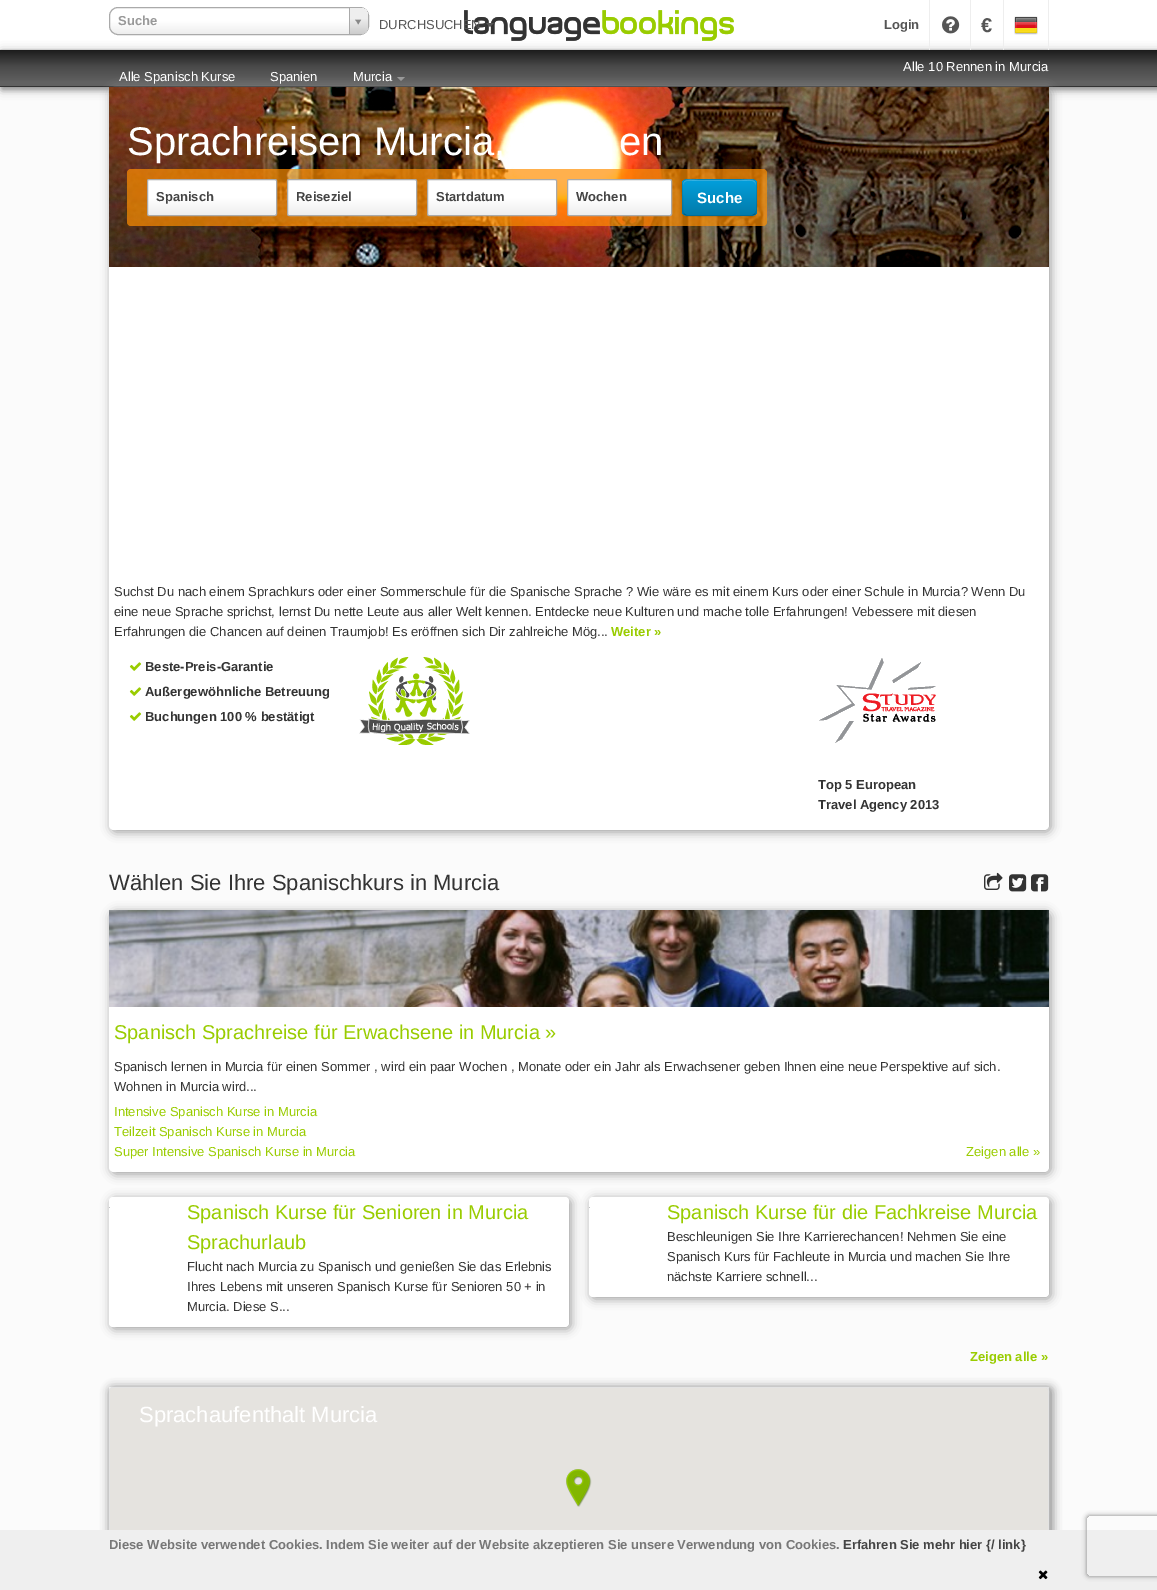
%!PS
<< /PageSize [1157 1590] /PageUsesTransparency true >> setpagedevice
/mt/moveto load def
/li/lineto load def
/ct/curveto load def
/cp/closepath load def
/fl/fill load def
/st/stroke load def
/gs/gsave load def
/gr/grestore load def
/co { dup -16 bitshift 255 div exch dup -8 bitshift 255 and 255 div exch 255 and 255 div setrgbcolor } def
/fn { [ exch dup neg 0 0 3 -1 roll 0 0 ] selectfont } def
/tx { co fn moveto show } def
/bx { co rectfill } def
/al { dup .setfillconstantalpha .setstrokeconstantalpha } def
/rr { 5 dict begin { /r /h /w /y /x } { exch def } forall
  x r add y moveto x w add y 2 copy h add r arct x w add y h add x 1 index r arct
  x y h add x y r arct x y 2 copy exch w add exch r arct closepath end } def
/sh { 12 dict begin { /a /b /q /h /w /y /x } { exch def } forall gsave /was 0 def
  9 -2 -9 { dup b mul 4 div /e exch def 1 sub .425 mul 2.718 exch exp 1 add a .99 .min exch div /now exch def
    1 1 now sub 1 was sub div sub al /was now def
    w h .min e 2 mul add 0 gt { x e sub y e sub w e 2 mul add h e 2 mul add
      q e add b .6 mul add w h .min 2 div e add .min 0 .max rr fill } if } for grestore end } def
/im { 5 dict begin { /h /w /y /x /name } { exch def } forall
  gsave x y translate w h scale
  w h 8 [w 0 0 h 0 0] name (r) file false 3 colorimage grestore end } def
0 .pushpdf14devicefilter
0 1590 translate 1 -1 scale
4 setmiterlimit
0 0 1157 1590 16#FBFBFB bx
0 0 1157 49 16#FFFFFF bx
gs
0 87 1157 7 rectclip
16#999999 co
2 2 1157 87 0 2.5 1 sh
gr
0 49 1157 1 16#E6E6E6 bx
16#999999 co
2 52 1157 37 0 5 1 sh
(media/1.raw) 464 10 270 31 im
gs 110 8 258 26 8 rr clip newpath
<< /ShadingType 2 /ColorSpace /DeviceRGB /Coords [110 34 110 8] /Extend [true true] /Function << /FunctionType 3 /Domain [0 1] /Functions [<< /FunctionType 2 /Domain [0 1] /C0 [.933 .933 .933] /C1 [1 1 1] /N 1 >> << /FunctionType 2 /Domain [0 1] /C0 [1 1 1] /C1 [1 1 1] /N 1 >>] /Bounds [.5] /Encode [0 1 0 1] >> >> shfill gr
16#AAAAAA co
109.5 7.5 259 27 8.5 rr st
gs 349 8 mt 360 8 li 364.5 8 368 11.5 368 16 ct 368 26 li 368 30.5 364.5 34 360 34 ct 349 34 li cp clip newpath
<< /ShadingType 2 /ColorSpace /DeviceRGB /Coords [350 34 350 8] /Extend [true true] /Function << /FunctionType 3 /Domain [0 1] /Functions [<< /FunctionType 2 /Domain [0 1] /C0 [.8 .8 .8] /C1 [.933 .933 .933] /N 1 >> << /FunctionType 2 /Domain [0 1] /C0 [.933 .933 .933] /C1 [.933 .933 .933] /N 1 >>] /Bounds [.6] /Encode [0 1 0 1] >> >> shfill gr
349 8 1 26 16#AAAAAA bx
(media/2.raw) 355 19 7 6 im
16#555555 co
486 23 mt 494 23 li 490 27 li cp fl
929 0 1 50 16#EEEEEE bx
970 0 1 50 16#EEEEEE bx
(media/3.raw) 942 16 18 18 im
1003 0 1 50 16#EEEEEE bx
1048 0 1 50 16#EEEEEE bx
(media/4.raw) 1014 16 24 19 im
gs 0 50 mt 1157 50 li 1157 86 li 0 86 li cp clip newpath
<< /ShadingType 2 /ColorSpace /DeviceRGB /Coords [579 86 579 50] /Extend [true true] /Function << /FunctionType 3 /Domain [0 1] /Functions [<< /FunctionType 2 /Domain [0 1] /C0 [.38 .38 .38] /C1 [.38 .38 .38] /N 1 >> << /FunctionType 2 /Domain [0 1] /C0 [.38 .38 .38] /C1 [.29 .29 .29] /N 1 >> << /FunctionType 2 /Domain [0 1] /C0 [.29 .29 .29] /C1 [.11 .11 .11] /N 1 >>] /Bounds [.1 .54] /Encode [0 1 0 1 0 1] >> >> shfill gr
0 86 1157 1 16#333333 bx
16#999999 co
111 89 940 743 5 5 1 sh
397 77 mt 405 77 li 401 81 li cp fl
16#FFFFFF co
109 87 mt 1049 87 li 1049 825 li 1049 828 1047 830 1044 830 ct 114 830 li 111 830 109 828 109 825 ct cp fl
(media/5.raw) 109 87 940 180 im
0.7 al
16#FF8E01 co
127 169 640 57 4 rr fl
1 al
gs 148 180 128 35 1 rr clip newpath
<< /ShadingType 2 /ColorSpace /DeviceRGB /Coords [148 215 148 180] /Extend [true true] /Function << /FunctionType 3 /Domain [0 1] /Functions [<< /FunctionType 2 /Domain [0 1] /C0 [.933 .933 .933] /C1 [1 1 1] /N 1 >> << /FunctionType 2 /Domain [0 1] /C0 [1 1 1] /C1 [1 1 1] /N 1 >>] /Bounds [.5] /Encode [0 1 0 1] >> >> shfill gr
16#AAAAAA co
147.5 179.5 129 36 1.5 rr st
gs 288 180 128 35 1 rr clip newpath
<< /ShadingType 2 /ColorSpace /DeviceRGB /Coords [288 215 288 180] /Extend [true true] /Function << /FunctionType 3 /Domain [0 1] /Functions [<< /FunctionType 2 /Domain [0 1] /C0 [.933 .933 .933] /C1 [1 1 1] /N 1 >> << /FunctionType 2 /Domain [0 1] /C0 [1 1 1] /C1 [1 1 1] /N 1 >>] /Bounds [.5] /Encode [0 1 0 1] >> >> shfill gr
287.5 179.5 129 36 1.5 rr st
gs 428 180 128 35 1 rr clip newpath
<< /ShadingType 2 /ColorSpace /DeviceRGB /Coords [428 215 428 180] /Extend [true true] /Function << /FunctionType 3 /Domain [0 1] /Functions [<< /FunctionType 2 /Domain [0 1] /C0 [.933 .933 .933] /C1 [1 1 1] /N 1 >> << /FunctionType 2 /Domain [0 1] /C0 [1 1 1] /C1 [1 1 1] /N 1 >>] /Bounds [.5] /Encode [0 1 0 1] >> >> shfill gr
427.5 179.5 129 36 1.5 rr st
gs 568 180 103 35 1 rr clip newpath
<< /ShadingType 2 /ColorSpace /DeviceRGB /Coords [568 215 568 180] /Extend [true true] /Function << /FunctionType 3 /Domain [0 1] /Functions [<< /FunctionType 2 /Domain [0 1] /C0 [.933 .933 .933] /C1 [1 1 1] /N 1 >> << /FunctionType 2 /Domain [0 1] /C0 [1 1 1] /C1 [1 1 1] /N 1 >>] /Bounds [.5] /Encode [0 1 0 1] >> >> shfill gr
567.5 179.5 104 36 1.5 rr st
16#000000 co
682 180 75 37 5 1 .05 sh
16#0390C8 co
682 179 75 37 5 rr fl
gs
682 179 75 37 5 rr clip newpath
gs 682 180 mt 757 180 li 757 215 li 682 215 li cp clip newpath
<< /ShadingType 2 /ColorSpace /DeviceRGB /Coords [720 180 720 215] /Extend [true true] /Function << /FunctionType 2 /Domain [0 1] /C0 [.012 .624 .863] /C1 [.008 .482 .667] /N 1 >> >> shfill gr
gr
0.2 al
16#FFFFFF co
687 181 mt 752 181 li 754 181 756 183 756 185 ct 756 177 746 180 741 180 ct 698 180 li 693 180 683 177 683 185 ct 683 183 685 181 687 181 ct cp fl
0.25 al
16#000000 co
755 214 mt 752.5 215.5 li 686.5 215.5 li 684 214 li st
0.1 al
684 214 mt 682 212 682.5 209 682.5 206.5 ct 682.5 197.5 li 682.5 178.5 679.5 179.5 698 179.5 ct 741 179.5 li 759.5 179.5 756.5 178.5 756.5 197.5 ct 756.5 206.5 li 756.5 209 757 212 755 214 ct st
1 al
(media/6.raw) 129 662 13 9 im
(media/6.raw) 129 687 13 9 im
(media/6.raw) 129 712 13 9 im
(media/7.raw) 359 657 111 88 im
(media/8.raw) 819 658 117 85 im
(media/9.raw) 984 872 19 18 im
(media/10.raw) 1009 874 18 18 im
(media/11.raw) 1031 874 18 18 im
16#999999 co
111 912 940 262 5 5 1 sh
16#FFFFFF co
109 910 mt 1049 910 li 1049 1167 li 1049 1170 1047 1172 1044 1172 ct 114 1172 li 111 1172 109 1170 109 1167 ct cp fl
(media/12.raw) 109 910 940 97 im
16#999999 co
111 1199 460 130 4 5 1 sh
16#FFFFFF co
109 1197 460 130 4 rr fl
109 1207 1 1 16#C3C3C3 bx
16#999999 co
591 1199 460 100 4 5 1 sh
16#FFFFFF co
589 1197 460 100 4 rr fl
589 1207 1 1 16#C3C3C3 bx
16#999999 co
111 1389 940 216 0 5 1 sh
109 1387 940 4 16#FFFFFF bx
16#999999 co
111 1389 940 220 4 5 1 sh
16#E3E3E3 co
109.5 1387.5 939 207 3.5 rr st
16#E5E3DF co
110 1388 938 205 3 rr fl
(media/13.raw) 566 1469 26 38 im
0 1530 1157 60 16#EFEFEF bx
(media/14.raw) 1038 1570 10 10 im
gs
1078 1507 mt 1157 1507 li 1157 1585 li 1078 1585 li cp 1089 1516 mt 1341 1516 li 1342 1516 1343 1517 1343 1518 ct 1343 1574 li 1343 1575 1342 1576 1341 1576 ct 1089 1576 li 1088 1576 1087 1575 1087 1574 ct 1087 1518 li 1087 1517 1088 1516 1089 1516 ct cp eoclip newpath
16#808080 co
1087 1516 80 60 2 2.5 1 sh
gr
(Suche) 118 25 /LiberationSans-Bold 13 16#999999 tx
(DURCHSUCHEN) 379 29 /LiberationSans-Regular 13 16#555555 tx
(Login) 884 29 /LiberationSans-Bold 13 16#555555 tx
(€) 981 32 /LiberationSans-Bold 20 16#555555 tx
(Alle 10 Rennen in Murcia) 903 71 /LiberationSans-Regular 13 16#FFFFFF tx
(Alle Spanisch Kurse) 119 81 /LiberationSans-Regular 13 16#FFFFFF tx
(Spanien) 270 81 /LiberationSans-Regular 13 16#FFFFFF tx
(Murcia) 353 81 /LiberationSans-Regular 13 16#FFFFFF tx
(Sprachreisen Murcia,) 127 155 /LiberationSans-Regular 40 16#FFFFFF tx
(en) 619 155 /LiberationSans-Regular 40 16#FFFFFF tx
(Spanisch) 156 201 /LiberationSans-Bold 13 16#444444 tx
(Reiseziel) 296 201 /LiberationSans-Bold 13 16#444444 tx
(Startdatum) 436 201 /LiberationSans-Bold 13 16#444444 tx
(Wochen) 576 201 /LiberationSans-Bold 13 16#444444 tx
(Suche) 697 203 /LiberationSans-Bold 15 16#FFFFFF tx
(Suchst Du nach einem Sprachkurs oder einer Sommerschule für die Spanische Sprache ? Wie wäre es mit einem Kurs oder einer Schule in Murcia? Wenn Du) 114 596 /LiberationSans-Regular 13 16#333333 tx
(eine neue Sprache sprichst, lernst Du nette Leute aus aller Welt kennen. Entdecke neue Kulturen und mache tolle Erfahrungen! Vebessere mit diesen) 114 616 /LiberationSans-Regular 13 16#333333 tx
(Erfahrungen die Chancen auf deinen Traumjob! Es eröffnen sich Dir zahlreiche Mög...) 114 636 /LiberationSans-Regular 13 16#333333 tx
(Weiter ») 611 636 /LiberationSans-Bold 13 16#99CC00 tx
(Beste-Preis-Garantie) 145 671 /LiberationSans-Bold 13 16#333333 tx
(Außergewöhnliche Betreuung) 145 696 /LiberationSans-Bold 13 16#333333 tx
(Buchungen 100 % bestätigt) 145 721 /LiberationSans-Bold 13 16#333333 tx
(Top 5 European) 818 789 /LiberationSans-Bold 13 16#333333 tx
(Travel Agency 2013) 818 809 /LiberationSans-Bold 13 16#333333 tx
(Wählen Sie Ihre Spanischkurs in Murcia) 109 890 /LiberationSans-Regular 22 16#333333 tx
(Spanisch Sprachreise für Erwachsene in Murcia ») 114 1039 /LiberationSans-Regular 20 16#99CC00 tx
(Spanisch lernen in Murcia für einen Sommer , wird ein paar Wochen , Monate oder ein Jahr als Erwachsener geben Ihnen eine neue Perspektive auf sich.) 114 1071 /LiberationSans-Regular 13 16#333333 tx
(Wohnen in Murcia wird...) 114 1091 /LiberationSans-Regular 13 16#333333 tx
(Intensive Spanisch Kurse in Murcia) 114 1116 /LiberationSans-Regular 13 16#99CC00 tx
(Teilzeit Spanisch Kurse in Murcia) 114 1136 /LiberationSans-Regular 13 16#99CC00 tx
(Super Intensive Spanisch Kurse in Murcia) 114 1156 /LiberationSans-Regular 13 16#99CC00 tx
(Zeigen alle ») 966 1156 /LiberationSans-Regular 13 16#99CC00 tx
(Spanisch Kurse für Senioren in Murcia) 187 1219 /LiberationSans-Regular 20 16#99CC00 tx
(Sprachurlaub) 187 1249 /LiberationSans-Regular 20 16#99CC00 tx
(Flucht nach Murcia zu Spanisch und genießen Sie das Erlebnis) 187 1271 /LiberationSans-Regular 13 16#333333 tx
(Ihres Lebens mit unseren Spanisch Kurse für Senioren 50 + in) 187 1291 /LiberationSans-Regular 13 16#333333 tx
(Murcia. Diese S...) 187 1311 /LiberationSans-Regular 13 16#333333 tx
(Spanisch Kurse für die Fachkreise Murcia) 667 1219 /LiberationSans-Regular 20 16#99CC00 tx
(Beschleunigen Sie Ihre Karrierechancen! Nehmen Sie eine) 667 1241 /LiberationSans-Regular 13 16#333333 tx
(Spanisch Kurs für Fachleute in Murcia und machen Sie Ihre) 667 1261 /LiberationSans-Regular 13 16#333333 tx
(nächste Karriere schnell...) 667 1281 /LiberationSans-Regular 13 16#333333 tx
(Zeigen alle ») 970 1361 /LiberationSans-Bold 13 16#99CC00 tx
(Sprachaufenthalt Murcia) 139 1422 /LiberationSans-Regular 22 16#FFFFFF tx
(Diese Website verwendet Cookies. Indem Sie weiter auf der Website akzeptieren Sie unsere Verwendung von Cookies.) 109 1549 /LiberationSans-Bold 13 16#777777 tx
(Erfahren Sie mehr hier {/ link}) 843 1549 /LiberationSans-Bold 13 16#444444 tx
.poppdf14devicefilter showpage
